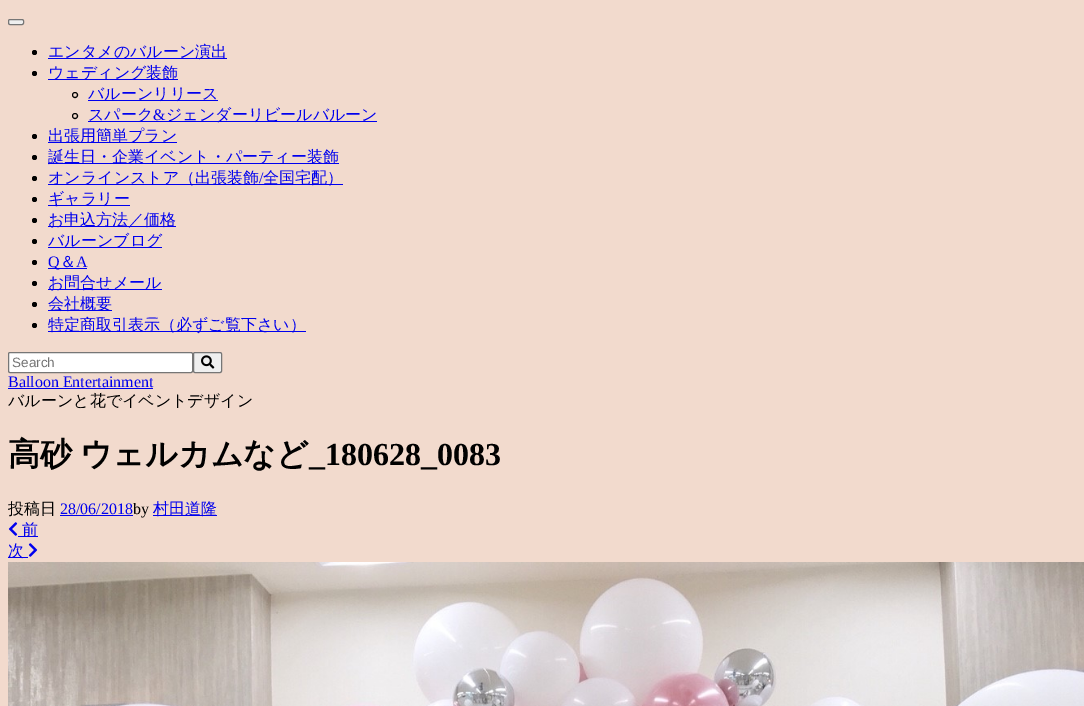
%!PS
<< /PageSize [1084 706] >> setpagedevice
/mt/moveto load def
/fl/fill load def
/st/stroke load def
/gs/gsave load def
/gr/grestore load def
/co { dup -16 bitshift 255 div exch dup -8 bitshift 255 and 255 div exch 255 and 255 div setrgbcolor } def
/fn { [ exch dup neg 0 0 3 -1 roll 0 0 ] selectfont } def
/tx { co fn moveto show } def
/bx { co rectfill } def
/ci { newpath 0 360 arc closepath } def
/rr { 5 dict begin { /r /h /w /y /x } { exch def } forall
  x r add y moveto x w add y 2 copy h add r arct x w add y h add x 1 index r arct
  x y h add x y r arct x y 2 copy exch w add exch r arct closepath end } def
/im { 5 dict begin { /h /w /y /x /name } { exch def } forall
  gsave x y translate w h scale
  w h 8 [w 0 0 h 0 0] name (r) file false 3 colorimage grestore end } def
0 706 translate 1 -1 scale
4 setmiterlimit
0 0 1084 706 16#F2DACD bx
16#EFEFEF co
8.5 19.5 15 5 1.5 rr gs fl gr
16#767676 co
st
16#000000 co
34.5 52.5 2.5 ci fl
48 58 179 1 16#0000EE bx
16#000000 co
34.5 73.5 2.5 ci fl
48 79 130 1 16#0000EE bx
16#000000 co
75 95 2.5 ci st
88 100 130 1 16#0000EE bx
16#000000 co
75 116 2.5 ci st
88 121 289 1 16#0000EE bx
16#000000 co
34.5 136.5 2.5 ci fl
48 142 129 1 16#0000EE bx
16#000000 co
34.5 157.5 2.5 ci fl
48 163 291 1 16#0000EE bx
16#000000 co
34.5 178.5 2.5 ci fl
48 184 295 1 16#0000EE bx
16#000000 co
34.5 199.5 2.5 ci fl
48 205 82 1 16#0000EE bx
16#000000 co
34.5 220.5 2.5 ci fl
48 226 128 1 16#0000EE bx
16#000000 co
34.5 241.5 2.5 ci fl
48 247 114 1 16#0000EE bx
16#000000 co
34.5 262.5 2.5 ci fl
48 268 39 1 16#0000EE bx
16#000000 co
34.5 283.5 2.5 ci fl
48 289 114 1 16#0000EE bx
16#000000 co
34.5 304.5 2.5 ci fl
48 310 64 1 16#0000EE bx
16#000000 co
34.5 325.5 2.5 ci fl
48 331 258 1 16#0000EE bx
16#FFFFFF co
8.5 352.5 184 20 1.5 rr gs fl gr
16#767676 co
st
16#EFEFEF co
193.5 352.5 28 20 1.5 rr gs fl gr
16#767676 co
st
(media/1.raw) 201 355 14 14 im
8 388 145 1 16#0000EE bx
60 515 73 1 16#0000EE bx
153 515 64 1 16#0000EE bx
(media/2.raw) 8 522 10 14 im
18 536 20 1 16#0000EE bx
8 557 20 1 16#0000EE bx
(media/3.raw) 28 543 10 14 im
(media/4.raw) 8 562 1076 144 im
(エンタメのバルーン演出) 48 57 /WenQuanYiZenHei-Medium 16 16#0000EE tx
(ウェディング装飾) 48 78 /WenQuanYiZenHei-Medium 16 16#0000EE tx
(バルーンリリース) 88 99 /WenQuanYiZenHei-Medium 16 16#0000EE tx
(スパーク) 88 120 /WenQuanYiZenHei-Medium 16 16#0000EE tx
(&) 153 120 /LiberationSerif-Regular 16 16#0000EE tx
(ジェンダーリビールバルーン) 166 120 /WenQuanYiZenHei-Medium 16 16#0000EE tx
(出張用簡単プラン) 48 141 /WenQuanYiZenHei-Medium 16 16#0000EE tx
(誕生日・企業イベント・パーティー装飾) 48 162 /WenQuanYiZenHei-Medium 16 16#0000EE tx
(オンラインストア（出張装飾) 48 183 /WenQuanYiZenHei-Medium 16 16#0000EE tx
(/) 259 183 /LiberationSerif-Regular 16 16#0000EE tx
(全国宅配）) 263 183 /WenQuanYiZenHei-Medium 16 16#0000EE tx
(ギャラリー) 48 204 /WenQuanYiZenHei-Medium 16 16#0000EE tx
(お申込方法／価格) 48 225 /WenQuanYiZenHei-Medium 16 16#0000EE tx
(バルーンブログ) 48 246 /WenQuanYiZenHei-Medium 16 16#0000EE tx
(Q) 48 267 /LiberationSerif-Regular 16 16#0000EE tx
(＆) 60 267 /WenQuanYiZenHei-Medium 16 16#0000EE tx
(A) 76 267 /LiberationSerif-Regular 16 16#0000EE tx
(お問合せメール) 48 288 /WenQuanYiZenHei-Medium 16 16#0000EE tx
(会社概要) 48 309 /WenQuanYiZenHei-Medium 16 16#0000EE tx
(特定商取引表示（必ずご覧下さい）) 48 330 /WenQuanYiZenHei-Medium 16 16#0000EE tx
(Search) 12 367 /LiberationSans-Regular 13.5 16#757575 tx
(Balloon Entertainment) 8 387 /LiberationSerif-Regular 16 16#0000EE tx
(バルーンと花でイベントデザイン) 8 406 /WenQuanYiZenHei-Medium 16 16#000000 tx
/WenQuanYiZenHei-Bold 32 fn
8 465 mt -2 0 32 (高砂 ウェルカムなど) widthshow
(_180628_0083) 309 465 /LiberationSerif-Bold 32 16#000000 tx
(投稿日) 8 514 /WenQuanYiZenHei-Medium 16 16#000000 tx
(28/06/2018) 60 514 /LiberationSerif-Regular 16 16#0000EE tx
(by) 133 514 /LiberationSerif-Regular 16 16#000000 tx
(村田道隆) 153 514 /WenQuanYiZenHei-Medium 16 16#0000EE tx
(前) 22 535 /WenQuanYiZenHei-Medium 16 16#0000EE tx
(次) 8 556 /WenQuanYiZenHei-Medium 16 16#0000EE tx
showpage
